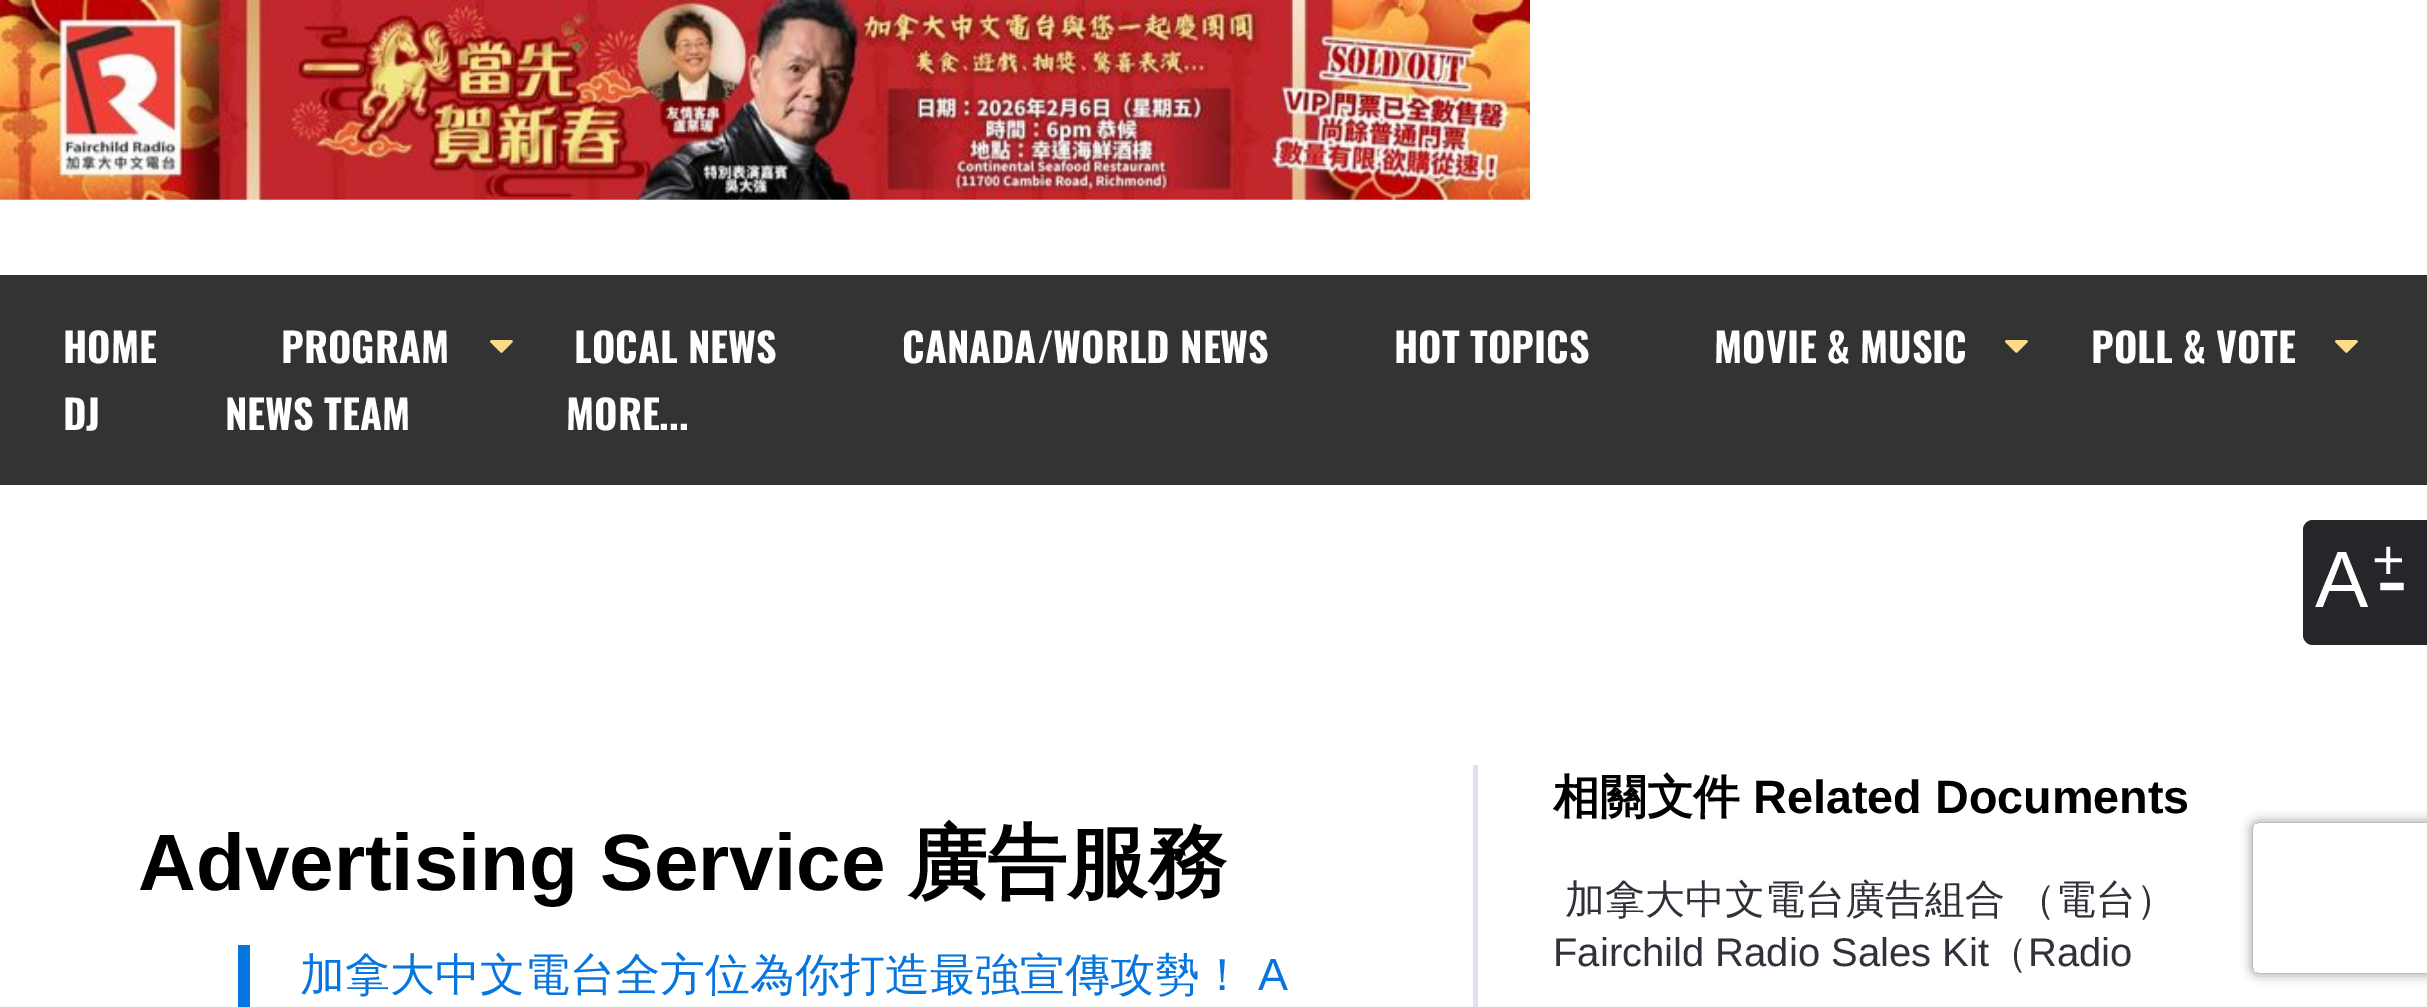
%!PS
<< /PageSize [2427 1007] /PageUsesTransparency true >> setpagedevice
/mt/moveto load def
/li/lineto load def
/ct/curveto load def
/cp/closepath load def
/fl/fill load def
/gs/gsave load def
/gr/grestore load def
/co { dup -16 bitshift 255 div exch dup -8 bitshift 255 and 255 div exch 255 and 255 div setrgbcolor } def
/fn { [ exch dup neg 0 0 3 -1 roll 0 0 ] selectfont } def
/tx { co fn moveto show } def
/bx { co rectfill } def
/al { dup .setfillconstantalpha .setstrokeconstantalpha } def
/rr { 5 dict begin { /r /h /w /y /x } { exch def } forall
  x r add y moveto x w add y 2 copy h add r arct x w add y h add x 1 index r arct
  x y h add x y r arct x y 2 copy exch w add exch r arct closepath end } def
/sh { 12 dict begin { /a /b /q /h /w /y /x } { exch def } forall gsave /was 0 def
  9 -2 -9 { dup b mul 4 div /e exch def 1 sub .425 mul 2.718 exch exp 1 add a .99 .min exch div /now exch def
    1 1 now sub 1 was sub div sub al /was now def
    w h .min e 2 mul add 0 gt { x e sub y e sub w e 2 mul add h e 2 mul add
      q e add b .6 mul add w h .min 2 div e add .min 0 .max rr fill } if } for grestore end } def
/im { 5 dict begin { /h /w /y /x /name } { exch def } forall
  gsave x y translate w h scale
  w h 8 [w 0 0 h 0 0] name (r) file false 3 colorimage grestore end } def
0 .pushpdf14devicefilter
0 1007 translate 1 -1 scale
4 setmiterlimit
0 0 2427 1007 16#FFFFFF bx
(media/1.raw) 0 0 1530 200 im
0 275 2427 210 16#333333 bx
(media/2.raw) 490 340 23 13 im
(media/2.raw) 2005 340 23 13 im
(media/2.raw) 2335 340 23 13 im
16#25262A co
2313 520 mt 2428 520 li 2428 645 li 2313 645 li 2307.5 645 2303 640.5 2303 635 ct 2303 530 li 2303 524.5 2307.5 520 2313 520 ct cp fl
238 945 12 62 16#0675DD bx
1473 765 5 242 16#E0E1EA bx
gs
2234 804 mt 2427 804 li 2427 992 li 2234 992 li cp 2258 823 mt 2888 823 li 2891 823 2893 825 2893 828 ct 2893 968 li 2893 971 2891 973 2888 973 ct 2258 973 li 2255 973 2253 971 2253 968 ct 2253 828 li 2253 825 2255 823 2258 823 ct cp eoclip newpath
16#808080 co
2253 823 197 150 5 6 1 sh
gr
(HOME) 63 363 /Oswald-Bold 40 16#FFFFFF tx
(PROGRAM) 281 363 /Oswald-Bold 40 16#FFFFFF tx
(LOCAL NEWS) 574 363 /Oswald-Bold 40 16#FFFFFF tx
(CANADA/WORLD NEWS) 902 363 /Oswald-Bold 40 16#FFFFFF tx
(HOT TOPICS) 1394 363 /Oswald-Bold 40 16#FFFFFF tx
(MOVIE & MUSIC) 1714 363 /Oswald-Bold 40 16#FFFFFF tx
(POLL & VOTE) 2091 363 /Oswald-Bold 40 16#FFFFFF tx
(DJ) 63 430 /Oswald-Bold 40 16#FFFFFF tx
(NEWS TEAM) 225 430 /Oswald-Bold 40 16#FFFFFF tx
(MORE...) 566 430 /Oswald-Bold 40 16#FFFFFF tx
(A) 2315 607 /LiberationSans-Regular 80 16#FFFFFF tx
(+) 2372 579 /LiberationSans-Regular 56 16#FFFFFF tx
(-) 2376 612 /LiberationSans-Regular 96 16#FFFFFF tx
(Advertising Service) 138 890 /LiberationSans-Bold 80 16#000000 tx
(廣告服務) 907 890 /WenQuanYiZenHei-Bold 80 16#000000 tx
(加拿大中文電台全方位為你打造最強宣傳攻勢！) 300 990 /WenQuanYiZenHei-Medium 45 16#0675DD tx
(A) 1258 990 /LiberationSans-Regular 45 16#0675DD tx
(相關文件) 1553 813 /WenQuanYiZenHei-Bold 46.75 16#000000 tx
(Related Documents) 1753 813 /LiberationSans-Bold 46.75 16#000000 tx
/WenQuanYiZenHei-Medium 40 fn
16#30313A co
1565 913 mt -1 0 32 (加拿大中文電台廣告組合 （電台）) widthshow
(Fairchild Radio Sales Kit) 1553 966 /LiberationSans-Regular 40 16#30313A tx
(（) 1988 966 /WenQuanYiZenHei-Medium 40 16#30313A tx
(Radio) 2028 966 /LiberationSans-Regular 40 16#30313A tx
.poppdf14devicefilter showpage
